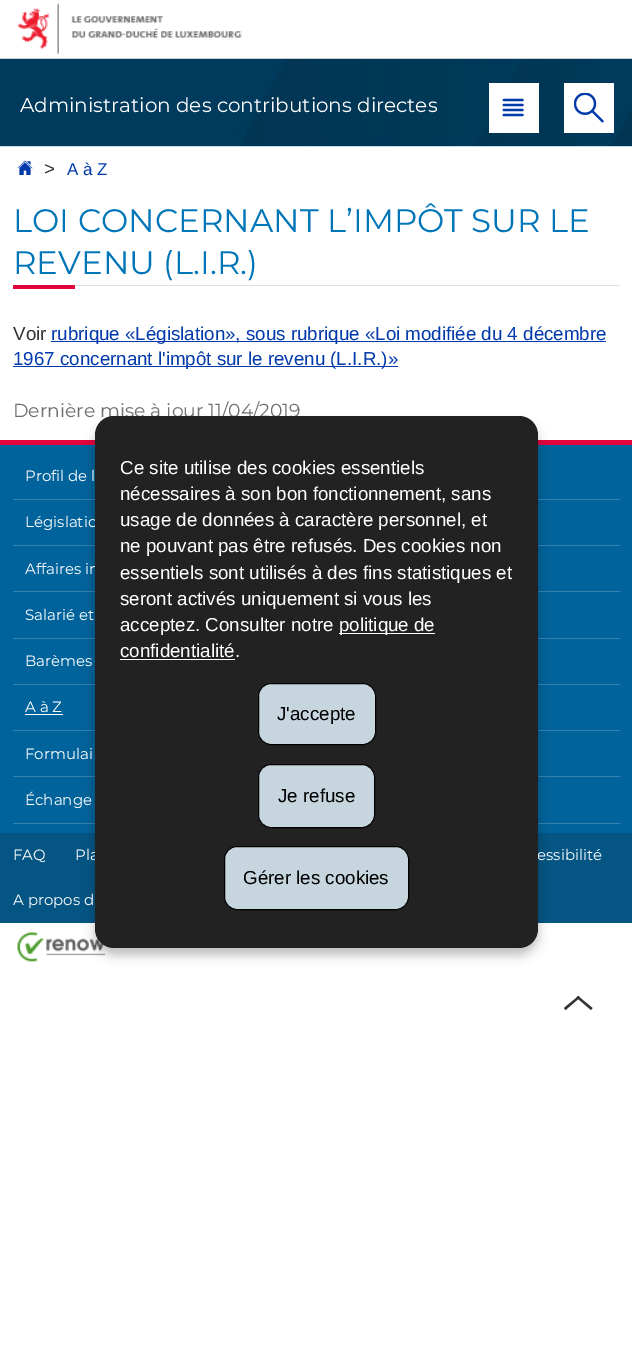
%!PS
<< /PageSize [632 1363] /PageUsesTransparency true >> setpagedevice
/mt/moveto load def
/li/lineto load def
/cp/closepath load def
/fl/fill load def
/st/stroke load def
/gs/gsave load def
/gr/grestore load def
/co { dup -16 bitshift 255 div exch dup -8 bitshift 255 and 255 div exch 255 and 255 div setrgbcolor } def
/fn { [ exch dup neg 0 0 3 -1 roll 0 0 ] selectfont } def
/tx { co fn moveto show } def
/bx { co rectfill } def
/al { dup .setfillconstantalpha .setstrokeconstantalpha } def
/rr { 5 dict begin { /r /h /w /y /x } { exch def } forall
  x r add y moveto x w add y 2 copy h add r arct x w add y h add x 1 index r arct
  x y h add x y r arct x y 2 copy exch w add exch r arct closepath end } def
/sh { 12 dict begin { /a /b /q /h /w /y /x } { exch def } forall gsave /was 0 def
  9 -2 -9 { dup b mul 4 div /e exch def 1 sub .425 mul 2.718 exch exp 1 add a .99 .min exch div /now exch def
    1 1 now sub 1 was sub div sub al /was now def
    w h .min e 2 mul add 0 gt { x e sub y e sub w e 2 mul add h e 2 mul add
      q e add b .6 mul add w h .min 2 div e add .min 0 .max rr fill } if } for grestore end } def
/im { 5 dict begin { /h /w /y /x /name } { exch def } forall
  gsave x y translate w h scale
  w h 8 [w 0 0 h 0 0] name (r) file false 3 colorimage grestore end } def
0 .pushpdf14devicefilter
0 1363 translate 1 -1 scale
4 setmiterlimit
0 0 632 1363 16#FFFFFF bx
0 58 632 1 16#CCCACA bx
(media/1.raw) 17 3 225 51 im
(media/2.raw) 0 59 632 88 im
489 83 50 50 16#FFFFFF bx
(media/3.raw) 502 98 22 19 im
564 83 50 50 16#FFFFFF bx
(media/4.raw) 574 93 30 30 im
(media/5.raw) 18 160 15 15 im
75 285 545 1 16#E0E0E0 bx
13 285 62 4 16#E3033D bx
51 341 555 1 16#023AAB bx
13 366 385 1 16#023AAB bx
0 445 632 388 16#01639B bx
0 440 632 5 16#E3033D bx
13 499 607 1 16#3482AF bx
13 545 607 1 16#3482AF bx
13 591 607 1 16#3482AF bx
13 638 607 1 16#3482AF bx
13 684 607 1 16#3482AF bx
13 730 607 1 16#3482AF bx
25 714 38 1 16#FFFFFF bx
13 776 607 1 16#3482AF bx
13 823 607 1 16#3482AF bx
0 833 632 90 16#045583 bx
(media/6.raw) 17 932 89 30 im
16#333333 co
564 1008 mt 578.5 996 li 580 997.5 li 565.5 1010 li cp fl
578 996 mt 592.5 1008 li 591 1010 li 576.5 997.5 li cp fl
16#000000 co
95 424 443 531 19 5.5 .25 sh
(Administration des contributions directes) 20 112 /Montserrat-Regular 20 16#FFFFFF tx
(>) 44 175 /Arimo-Regular 18.75 16#333333 tx
(A à Z) 67 175 /Arimo-Regular 17 16#023AAB tx
(LOI CONCERNANT L’IMPÔT SUR LE) 13 232 /Montserrat-Regular 32.5 16#0076B9 tx
(REVENU \(L.I.R.\)) 13 274 /Montserrat-Regular 32.5 16#0076B9 tx
(Voir) 13 340 /Arimo-Regular 18.75 16#333333 tx
(rubrique «Législation», sous rubrique «Loi modifiée du 4 décembre) 51 340 /Arimo-Regular 18.75 16#023AAB tx
(1967 concernant l'impôt sur le revenu \(L.I.R.\)») 13 365 /Arimo-Regular 18.75 16#023AAB tx
(Dernière mise à jour 11/04/2019) 13 417 /Montserrat-Regular 18.75 16#6F6F6F tx
(Profil de l) 25 481 /Montserrat-Regular 15 16#FFFFFF tx
(Législatio) 25 527 /Montserrat-Regular 15 16#FFFFFF tx
(Affaires in) 25 574 /Montserrat-Regular 15 16#FFFFFF tx
(Salarié et) 25 620 /Montserrat-Regular 15 16#FFFFFF tx
(Barèmes) 25 666 /Montserrat-Regular 15 16#FFFFFF tx
(A à Z) 25 712 /Montserrat-Regular 15 16#FFFFFF tx
(Formulai) 25 759 /Montserrat-Regular 15 16#FFFFFF tx
(Échange) 25 805 /Montserrat-Regular 15 16#FFFFFF tx
(FAQ) 13 860 /Montserrat-Regular 15 16#FFFFFF tx
(Pla) 75 860 /Montserrat-Regular 15 16#FFFFFF tx
(essibilité) 537 860 /Montserrat-Regular 15 16#FFFFFF tx
(A propos d) 13 905 /Montserrat-Regular 15 16#FFFFFF tx
16#222222 co
95 416 443 532 19 rr fl
(Ce site utilise des cookies essentiels) 120 474 /LiberationSans-Regular 18.75 16#FFFFFF tx
(nécessaires à son bon fonctionnement, sans) 120 500 /LiberationSans-Regular 18.75 16#FFFFFF tx
(usage de données à caractère personnel, et) 120 526 /LiberationSans-Regular 18.75 16#FFFFFF tx
(ne pouvant pas être refusés. Des cookies non) 120 552 /LiberationSans-Regular 18.75 16#FFFFFF tx
(essentiels sont utilisés à des fins statistiques et) 120 579 /LiberationSans-Regular 18.75 16#FFFFFF tx
(seront activés uniquement si vous les) 120 605 /LiberationSans-Regular 18.75 16#FFFFFF tx
(acceptez. Consulter notre) 120 631 /LiberationSans-Regular 18.75 16#FFFFFF tx
339 633 96 1 16#FFFFFF bx
(politique de) 339 631 /LiberationSans-Regular 18.75 16#FFFFFF tx
(confidentialité.) 120 657 /LiberationSans-Regular 18.75 16#FFFFFF tx
120 659 115 1 16#FFFFFF bx
16#C6D5DE co
258.5 683.5 117 61 12.5 rr gs fl gr
16#000000 co
st
(J'accepte) 277 720 /LiberationSans-Regular 18.75 16#000000 tx
16#C6D5DE co
258.5 764.5 116 63 12.5 rr gs fl gr
16#000000 co
st
(Je refuse) 278 802 /LiberationSans-Regular 18.75 16#000000 tx
16#C6D5DE co
224.5 846.5 184 63 12.5 rr gs fl gr
16#000000 co
st
(Gérer les cookies) 243 884 /LiberationSans-Regular 18.75 16#000000 tx
.poppdf14devicefilter showpage
